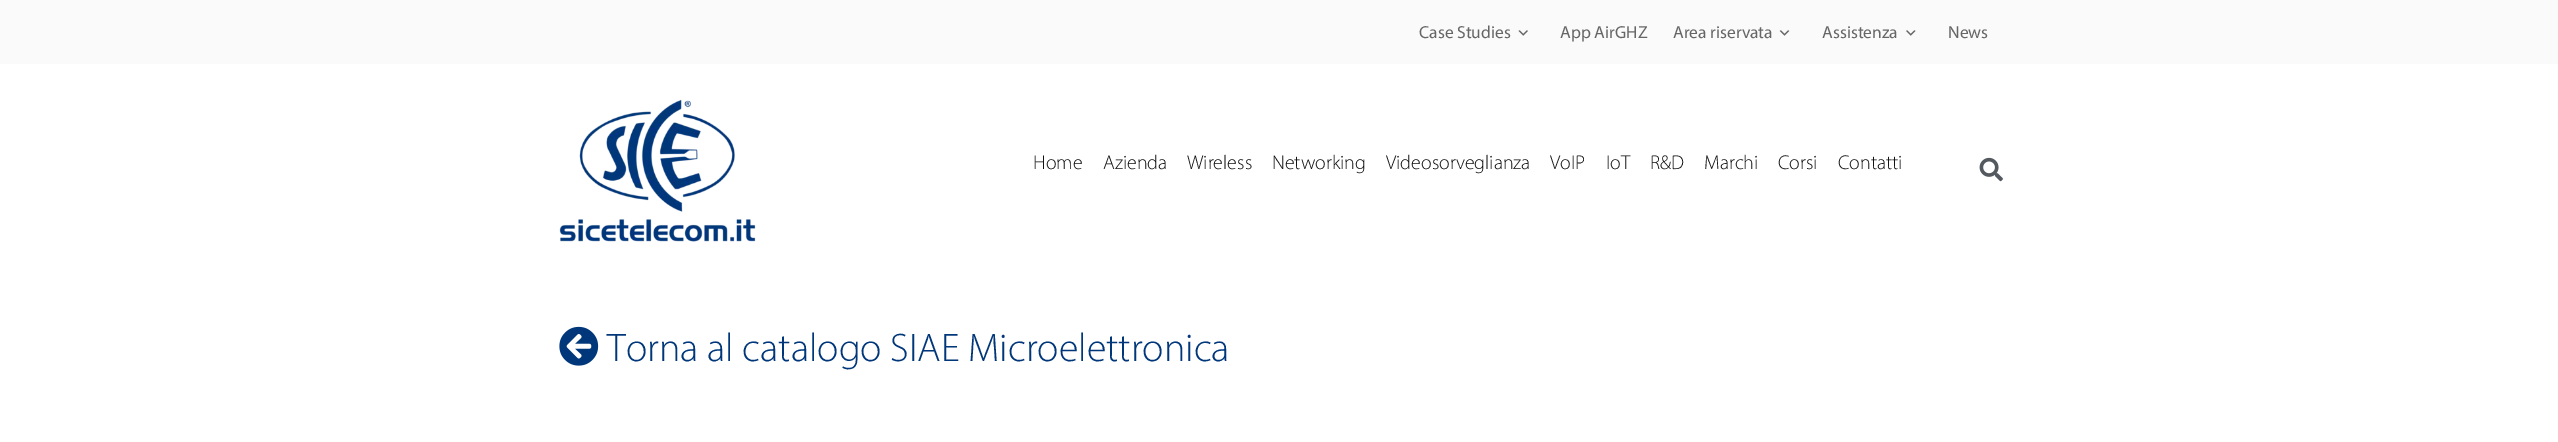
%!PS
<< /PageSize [2558 442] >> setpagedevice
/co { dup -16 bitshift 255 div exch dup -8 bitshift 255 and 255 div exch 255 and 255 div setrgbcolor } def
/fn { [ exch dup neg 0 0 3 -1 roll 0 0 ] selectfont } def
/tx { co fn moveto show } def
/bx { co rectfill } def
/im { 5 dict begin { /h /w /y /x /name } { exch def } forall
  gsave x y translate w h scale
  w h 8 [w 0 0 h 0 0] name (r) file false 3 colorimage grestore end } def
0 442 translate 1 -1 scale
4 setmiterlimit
0 0 2558 442 16#FFFFFF bx
0 0 2558 64 16#FAFAFA bx
(media/1.raw) 1518 30 10 6 im
(media/2.raw) 1779 30 11 6 im
(media/3.raw) 1906 30 10 6 im
(media/4.raw) 559 99 197 143 im
(media/5.raw) 1979 157 24 25 im
(media/6.raw) 559 326 40 40 im
(Case Studies) 1419 38 /Myriad-Regular 17.5 16#666666 tx
(App AirGHZ) 1560 38 /Myriad-Regular 17.5 16#666666 tx
(Area riservata) 1673 38 /Myriad-Regular 17.5 16#666666 tx
(Assistenza) 1822 38 /Myriad-Regular 17.5 16#666666 tx
(News) 1948 38 /Myriad-Regular 17.5 16#666666 tx
(Home) 1033 169 /Myriad-Light 20 16#111111 tx
(Azienda) 1103 169 /Myriad-Light 20 16#111111 tx
(Wireless) 1187 169 /Myriad-Light 20 16#111111 tx
(Networking) 1272 169 /Myriad-Light 20 16#111111 tx
(Videosorveglianza) 1386 169 /Myriad-Light 20 16#111111 tx
(VoIP) 1550 169 /Myriad-Light 20 16#111111 tx
(IoT) 1606 169 /Myriad-Light 20 16#111111 tx
(R&D) 1650 169 /Myriad-Light 20 16#111111 tx
(Marchi) 1704 169 /Myriad-Light 20 16#111111 tx
(Corsi) 1778 169 /Myriad-Light 20 16#111111 tx
(Contatti) 1838 169 /Myriad-Light 20 16#111111 tx
(Torna al catalogo SIAE Microelettronica) 607 361 /Myriad-Light 40 16#00377A tx
showpage
